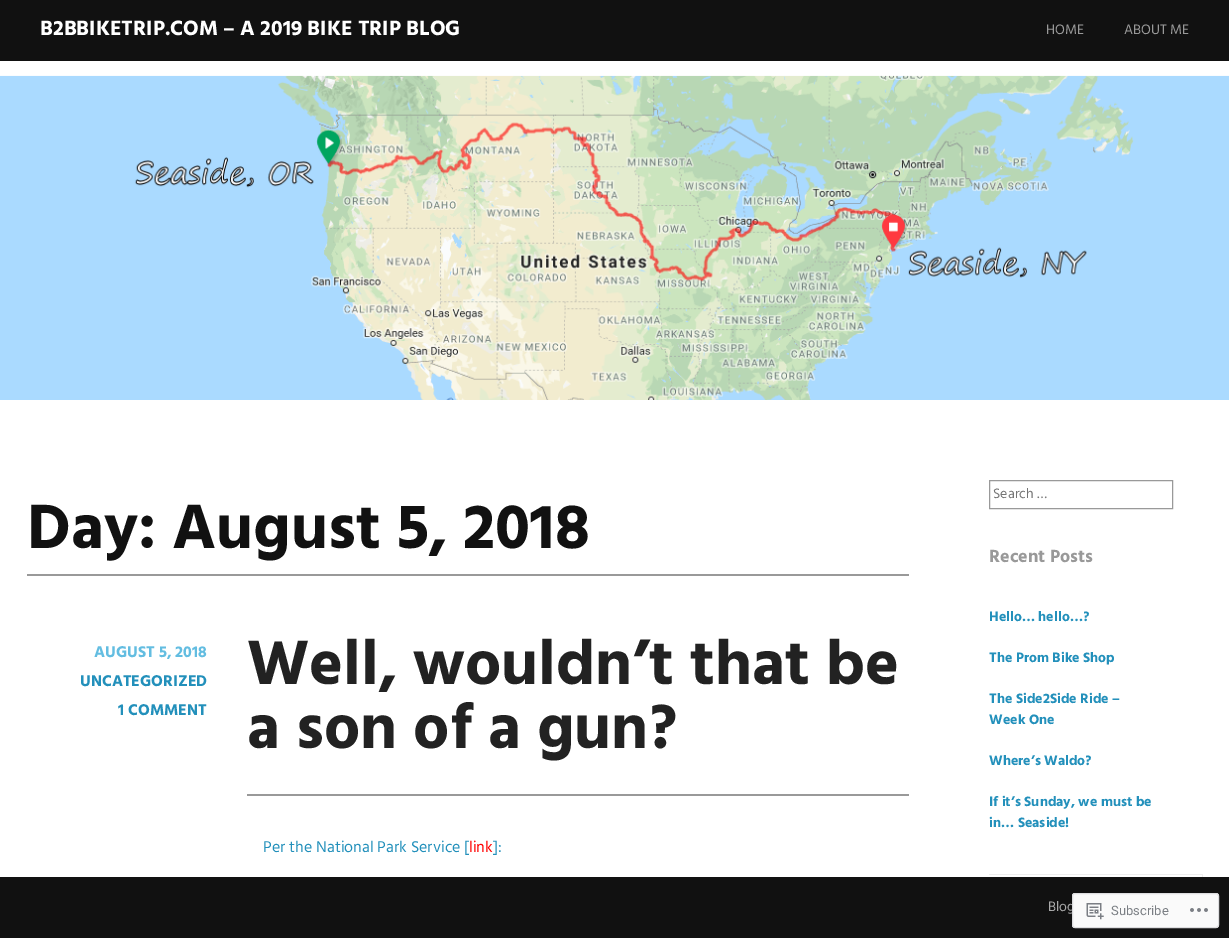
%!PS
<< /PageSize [1229 938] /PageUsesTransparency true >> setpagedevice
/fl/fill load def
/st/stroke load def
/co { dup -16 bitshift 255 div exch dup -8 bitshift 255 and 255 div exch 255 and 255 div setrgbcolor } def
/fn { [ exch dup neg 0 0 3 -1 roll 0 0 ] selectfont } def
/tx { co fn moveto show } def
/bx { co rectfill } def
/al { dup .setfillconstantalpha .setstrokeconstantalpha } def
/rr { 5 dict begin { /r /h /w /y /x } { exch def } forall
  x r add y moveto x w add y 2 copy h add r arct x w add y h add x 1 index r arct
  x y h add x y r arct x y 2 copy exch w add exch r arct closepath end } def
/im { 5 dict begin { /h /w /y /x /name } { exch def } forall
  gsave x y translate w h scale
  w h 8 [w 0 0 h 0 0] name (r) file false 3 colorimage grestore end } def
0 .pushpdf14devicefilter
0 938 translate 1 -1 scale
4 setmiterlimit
0 0 1229 938 16#FFFFFF bx
0 0 1229 61 16#111111 bx
(media/1.raw) 0 75 1229 325 im
27 574 882 2 16#999999 bx
247 794 662 2 16#999999 bx
989.5 480.5 183 28 rectstroke
989 874 214 1 16#EEEEEE bx
1202 874 1 3 16#EEEEEE bx
0 877 1229 61 16#111111 bx
(B2BBIKETRIP.COM – A 2019 BIKE TRIP BLOG) 40 35 /Hind-Bold 21.3 16#FFFFFF tx
(HOME) 1046 34 /Hind-Regular 14 16#999999 tx
(ABOUT ME) 1124 34 /Hind-Regular 14 16#999999 tx
(Day: August 5, 2018) 27 548 /Hind-Bold 64 16#111111 tx
(AUGUST 5, 2018) 94 657 /Hind-Bold 16 16#63BDE1 tx
(UNCATEGORIZED) 80 686 /Hind-Bold 16 16#2390BB tx
(1 COMMENT) 118 715 /Hind-Bold 16 16#2390BB tx
(Well, wouldn’t that be) 247 684 /Hind-Bold 64 16#222222 tx
(a son of a gun?) 247 748 /Hind-Bold 64 16#222222 tx
(Per the National Park Service [) 263 852 /Hind-Regular 16 16#2390BB tx
(link) 469 852 /Hind-Regular 16 16#FF0000 tx
(]:) 493 852 /Hind-Regular 16 16#2390BB tx
(Search …) 993 498 /Hind-Regular 14 16#757575 tx
(Recent Posts) 989 562 /Hind-Bold 18 16#999999 tx
(Hello… hello…?) 989 621 /Hind-Bold 14 16#2390BB tx
(The Prom Bike Shop) 989 662 /Hind-Bold 14 16#2390BB tx
(The Side2Side Ride –) 989 703 /Hind-Bold 14 16#2390BB tx
(Week One) 989 724 /Hind-Bold 14 16#2390BB tx
(Where’s Waldo?) 989 765 /Hind-Bold 14 16#2390BB tx
(If it’s Sunday, we must be) 989 806 /Hind-Bold 14 16#2390BB tx
(in… Seaside!) 989 827 /Hind-Bold 14 16#2390BB tx
(Blog) 1048 911 /Hind-Regular 14 16#AAAAAA tx
0.98 al
16#FFFFFF co
1072 893 147 35 3 rr fl
16#DCDCDE co
1072.5 893.5 146 34 2.5 rr st
1 al
(media/2.raw) 1086 903 18 17 im
(Subscribe) 1111 915 /Roboto-Regular 13 16#7B7F84 tx
(media/3.raw) 1190 908 18 4 im
.poppdf14devicefilter showpage
